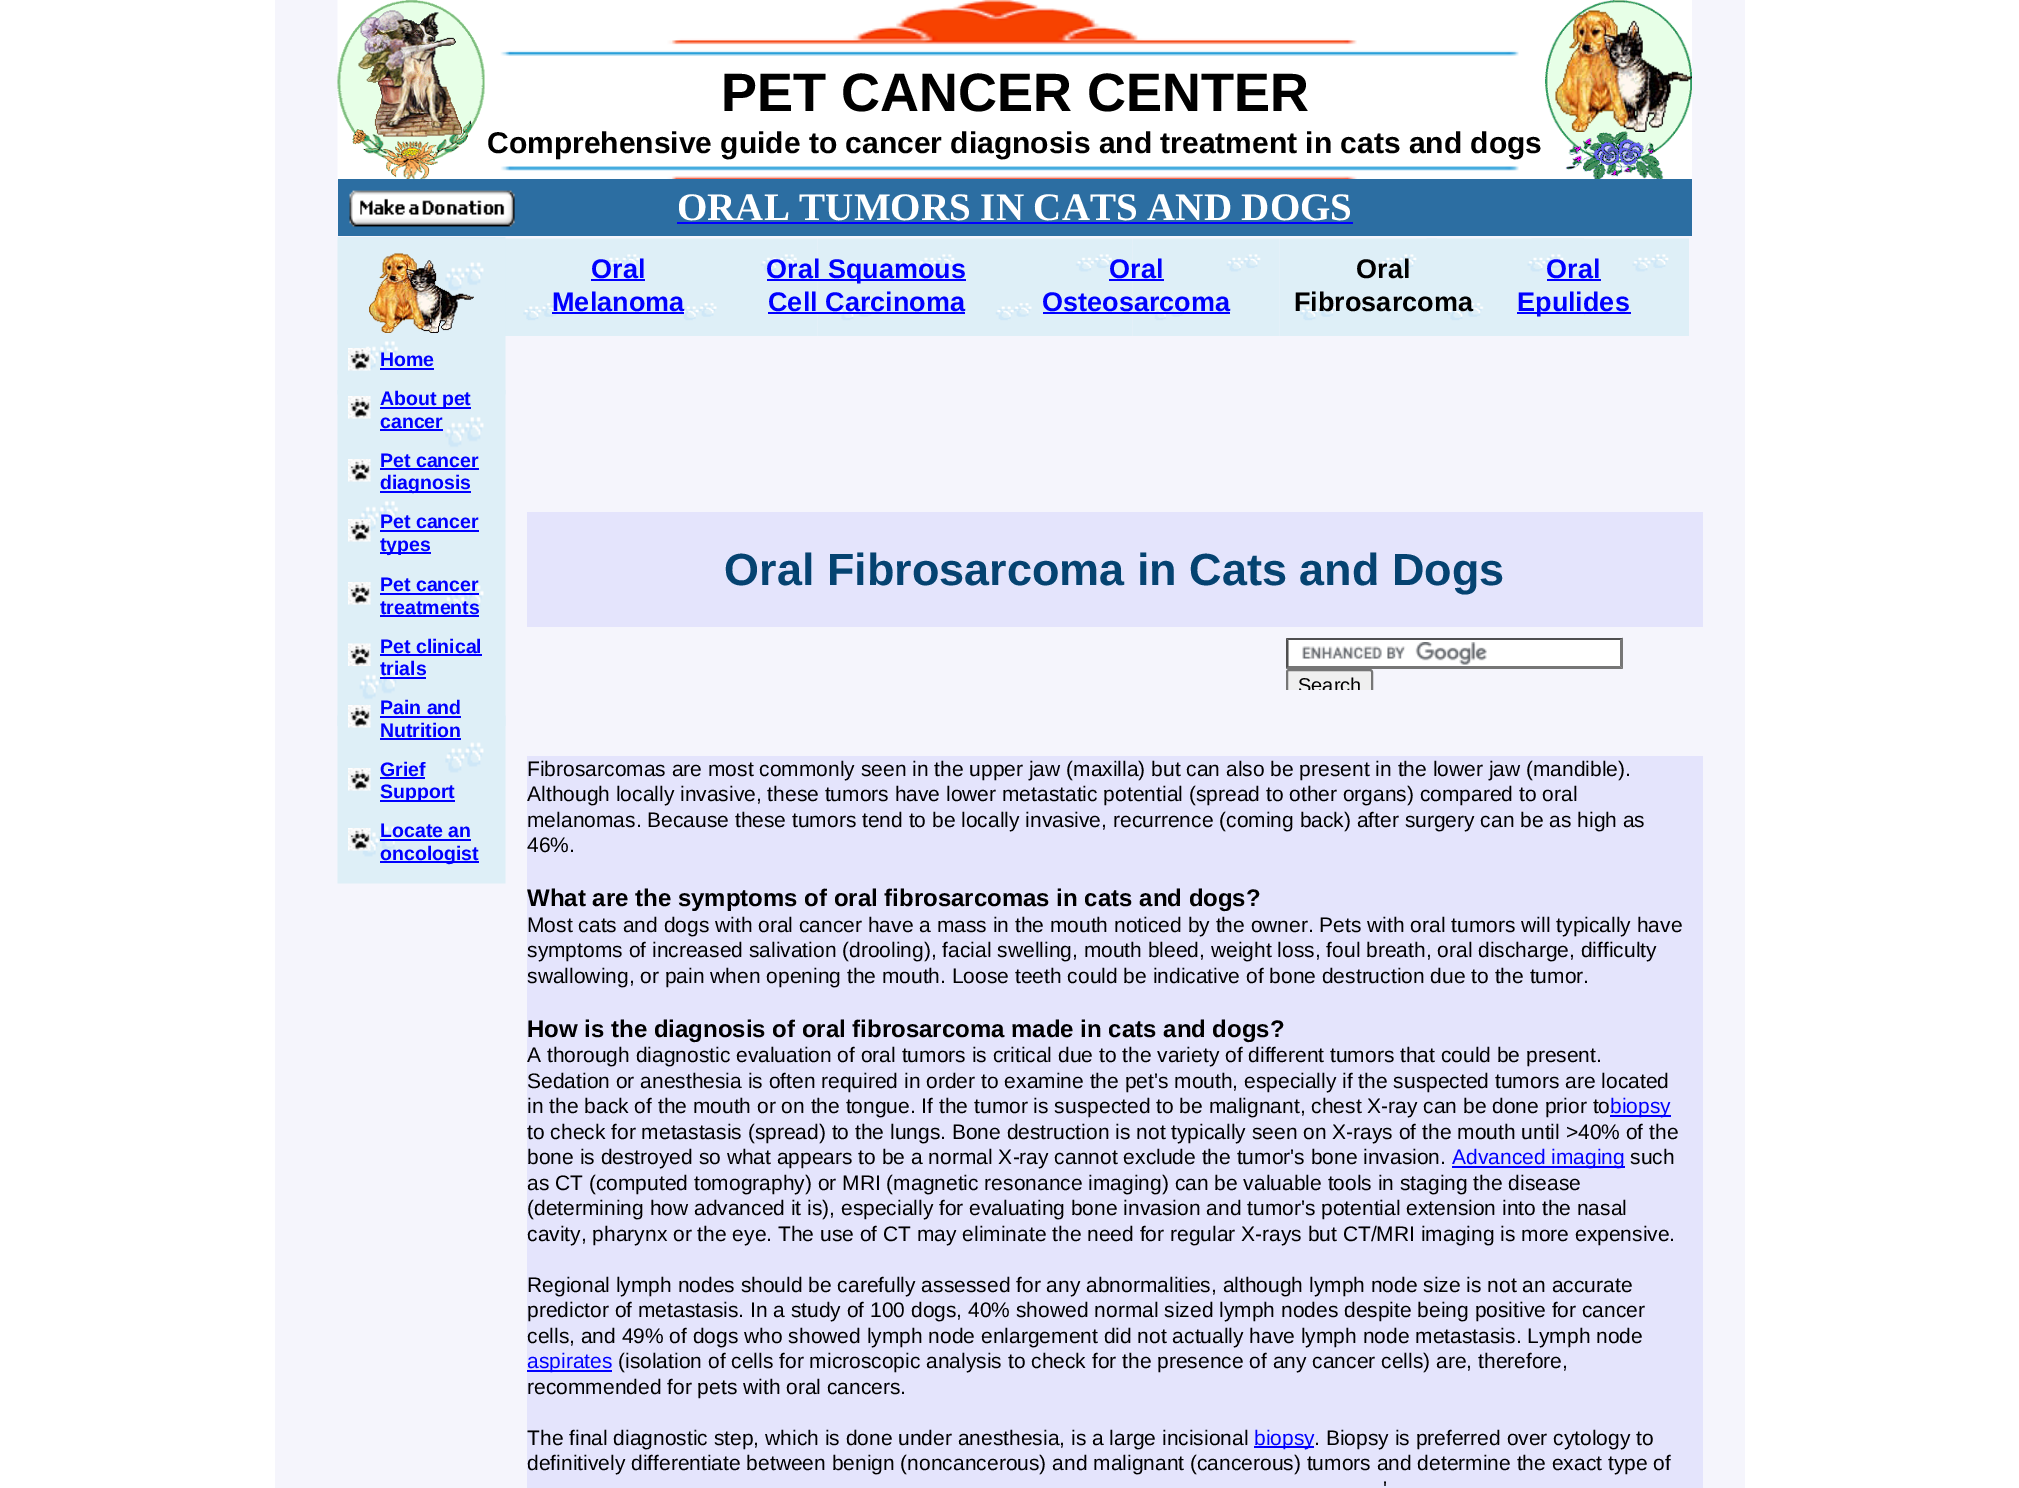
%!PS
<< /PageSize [2019 1488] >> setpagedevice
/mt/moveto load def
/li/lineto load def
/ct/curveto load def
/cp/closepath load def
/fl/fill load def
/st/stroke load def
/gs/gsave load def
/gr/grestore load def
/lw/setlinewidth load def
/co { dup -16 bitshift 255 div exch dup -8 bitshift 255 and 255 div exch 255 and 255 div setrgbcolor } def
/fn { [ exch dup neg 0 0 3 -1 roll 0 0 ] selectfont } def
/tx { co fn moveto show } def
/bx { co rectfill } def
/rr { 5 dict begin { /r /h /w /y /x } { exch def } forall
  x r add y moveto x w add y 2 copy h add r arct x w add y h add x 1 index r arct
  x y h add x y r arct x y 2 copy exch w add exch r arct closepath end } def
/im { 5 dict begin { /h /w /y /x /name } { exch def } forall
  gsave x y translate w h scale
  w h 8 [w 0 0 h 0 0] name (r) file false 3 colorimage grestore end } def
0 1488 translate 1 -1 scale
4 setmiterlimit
0 0 2019 1488 16#FFFFFF bx
275 0 1470 1488 16#F5F5FC bx
(media/2.raw) 484 0 1061 179 im
(media/1.raw) 337 0 148 180 im
(media/3.raw) 1545 0 147 179 im
(media/4.raw) 358 10 104 127 im
(media/5.raw) 1555 10 137 122 im
338 179 1354 57 16#2C6EA2 bx
(media/6.raw) 349 190 166 37 im
677 222 676 2 16#0000FF bx
(media/8.raw) 505 238 155 98 im
(media/7.raw) 337 237 169 158 im
(media/10.raw) 817 238 158 98 im
(media/9.raw) 660 238 158 98 im
(media/11.raw) 1132 238 148 98 im
(media/9.raw) 975 238 158 98 im
(media/10.raw) 1531 238 158 98 im
(media/13.raw) 1426 238 158 98 im
(media/12.raw) 1279 238 158 98 im
(media/14.raw) 369 253 105 80 im
591 279 54 2 16#0000FF bx
552 312 132 2 16#0000FF bx
767 279 199 2 16#0000FF bx
768 312 197 2 16#0000FF bx
1109 279 55 2 16#0000FF bx
1043 312 187 2 16#0000FF bx
1547 279 54 2 16#0000FF bx
1517 312 114 2 16#0000FF bx
(media/15.raw) 348 348 23 23 im
380 368 54 2 16#0000FF bx
(media/16.raw) 337 390 169 168 im
(media/17.raw) 348 396 23 23 im
380 407 91 2 16#0000FF bx
380 429 63 2 16#0000FF bx
(media/17.raw) 348 459 23 23 im
380 468 99 2 16#0000FF bx
380 491 91 2 16#0000FF bx
(media/18.raw) 348 519 23 23 im
380 530 99 2 16#0000FF bx
380 552 51 2 16#0000FF bx
(media/22.raw) 337 715 169 169 im
(media/19.raw) 337 558 169 168 im
527 512 1176 115 16#E4E4FC bx
(media/17.raw) 348 582 23 23 im
380 593 99 2 16#0000FF bx
380 615 99 2 16#0000FF bx
(media/20.raw) 348 643 23 23 im
380 654 102 2 16#0000FF bx
380 677 46 2 16#0000FF bx
1286 638 337 31 16#FFFFFF bx
(media/21.raw) 1302 642 185 23 im
16#4F4F4F co
1286 638 mt 1623 638 li 1620 640 li 1288 640 li cp fl
16#767676 co
1623 637.5 mt 1623 669 li 1620 666 li 1620 640.5 li cp fl
1623 669 mt 1286 669 li 1288 666 li 1620 666 li cp fl
gs
1286 638 429 52 rectclip
16#4F4F4F co
1285.5 669 mt 1285.5 637.5 li 1288.5 640.5 li 1288.5 666 li cp fl
gr
16#EFEFEF co
1289 669 mt 1370 669 li 1371.5 669 1373 670.5 1373 672 ct 1373 690 li 1286 690 li 1286 672 li 1286 670.5 1287.5 669 1289 669 ct cp fl
gs
1286 638 429 52 rectclip
16#767676 co
2 lw
1287 670 85 30 2 rr st
gr
(media/17.raw) 348 705 23 23 im
380 716 81 2 16#0000FF bx
380 738 81 2 16#0000FF bx
527 756 1176 732 16#E4E4FC bx
1610 1115 61 2 16#0000FF bx
1452 1166 173 2 16#0000FF bx
527 1370 85 2 16#0000FF bx
1254 1446 60 2 16#0000FF bx
(media/17.raw) 348 768 23 23 im
380 777 45 2 16#0000FF bx
380 800 75 2 16#0000FF bx
(media/23.raw) 348 828 23 23 im
380 839 91 2 16#0000FF bx
380 861 99 2 16#0000FF bx
(PET CANCER CENTER) 721 111 /LiberationSans-Bold 54 16#000000 tx
(Comprehensive guide to cancer diagnosis and treatment in cats and dogs) 487 153 /LiberationSans-Bold 30 16#000000 tx
(ORAL TUMORS IN CATS AND DOGS) 677 220 /LiberationSerif-Bold 39 16#FFFFFF tx
(Oral) 591 278 /LiberationSans-Bold 27 16#0000FF tx
(Melanoma) 552 311 /LiberationSans-Bold 27 16#0000FF tx
(Oral Squamous) 766 278 /LiberationSans-Bold 27 16#0000FF tx
(Cell Carcinoma) 768 311 /LiberationSans-Bold 27 16#0000FF tx
(Oral) 1109 278 /LiberationSans-Bold 27 16#0000FF tx
(Osteosarcoma) 1042 311 /LiberationSans-Bold 27 16#0000FF tx
(Oral) 1356 278 /LiberationSans-Bold 27 16#000000 tx
(Fibrosarcoma) 1294 311 /LiberationSans-Bold 27 16#000000 tx
(Oral) 1546 278 /LiberationSans-Bold 27 16#0000FF tx
(Epulides) 1517 311 /LiberationSans-Bold 27 16#0000FF tx
(Home) 380 366 /LiberationSans-Bold 19.5 16#0000FF tx
(About pet) 380 405 /LiberationSans-Bold 19.5 16#0000FF tx
(cancer) 380 428 /LiberationSans-Bold 19.5 16#0000FF tx
(Pet cancer) 380 467 /LiberationSans-Bold 19.5 16#0000FF tx
(diagnosis) 380 489 /LiberationSans-Bold 19.5 16#0000FF tx
(Pet cancer) 380 528 /LiberationSans-Bold 19.5 16#0000FF tx
(types) 380 551 /LiberationSans-Bold 19.5 16#0000FF tx
(Oral Fibrosarcoma in Cats and Dogs) 724 585 /LiberationSans-Bold 45 16#054371 tx
(Pet cancer) 380 591 /LiberationSans-Bold 19.5 16#0000FF tx
(treatments) 380 614 /LiberationSans-Bold 19.5 16#0000FF tx
(Pet clinical) 380 653 /LiberationSans-Bold 19.5 16#0000FF tx
(trials) 380 675 /LiberationSans-Bold 19.5 16#0000FF tx
gs
1289 672 81 18 rectclip
(Search) 1298 692 /LiberationSans-Regular 20 16#000000 tx
gr
(Pain and) 380 714 /LiberationSans-Bold 19.5 16#0000FF tx
(Nutrition) 380 737 /LiberationSans-Bold 19.5 16#0000FF tx
(Fibrosarcomas are most commonly seen in the upper jaw \(maxilla\) but can also be present in the lower jaw \(mandible\).) 527 776 /LiberationSans-Regular 21 16#000000 tx
(Although locally invasive, these tumors have lower metastatic potential \(spread to other organs\) compared to oral) 527 801 /LiberationSans-Regular 21 16#000000 tx
(melanomas. Because these tumors tend to be locally invasive, recurrence \(coming back\) after surgery can be as high as) 527 827 /LiberationSans-Regular 21 16#000000 tx
(46%.) 527 852 /LiberationSans-Regular 21 16#000000 tx
(What are the symptoms of oral fibrosarcomas in cats and dogs?) 527 906 /LiberationSans-Bold 24 16#000000 tx
(Most cats and dogs with oral cancer have a mass in the mouth noticed by the owner. Pets with oral tumors will typically have) 527 932 /LiberationSans-Regular 21 16#000000 tx
(symptoms of increased salivation \(drooling\), facial swelling, mouth bleed, weight loss, foul breath, oral discharge, difficulty) 527 957 /LiberationSans-Regular 21 16#000000 tx
(swallowing, or pain when opening the mouth. Loose teeth could be indicative of bone destruction due to the tumor.) 527 983 /LiberationSans-Regular 21 16#000000 tx
(How is the diagnosis of oral fibrosarcoma made in cats and dogs?) 527 1037 /LiberationSans-Bold 24 16#000000 tx
(A thorough diagnostic evaluation of oral tumors is critical due to the variety of different tumors that could be present.) 527 1062 /LiberationSans-Regular 21 16#000000 tx
(Sedation or anesthesia is often required in order to examine the pet's mouth, especially if the suspected tumors are located) 527 1088 /LiberationSans-Regular 21 16#000000 tx
(in the back of the mouth or on the tongue. If the tumor is suspected to be malignant, chest X-ray can be done prior to) 527 1113 /LiberationSans-Regular 21 16#000000 tx
(biopsy) 1610 1113 /LiberationSans-Regular 21 16#0000FF tx
(to check for metastasis \(spread\) to the lungs. Bone destruction is not typically seen on X-rays of the mouth until >40% of the) 527 1139 /LiberationSans-Regular 21 16#000000 tx
(bone is destroyed so what appears to be a normal X-ray cannot exclude the tumor's bone invasion.) 527 1164 /LiberationSans-Regular 21 16#000000 tx
(Advanced imaging) 1452 1164 /LiberationSans-Regular 21 16#0000FF tx
(such) 1630 1164 /LiberationSans-Regular 21 16#000000 tx
(as CT \(computed tomography\) or MRI \(magnetic resonance imaging\) can be valuable tools in staging the disease) 527 1190 /LiberationSans-Regular 21 16#000000 tx
(\(determining how advanced it is\), especially for evaluating bone invasion and tumor's potential extension into the nasal) 527 1215 /LiberationSans-Regular 21 16#000000 tx
(cavity, pharynx or the eye. The use of CT may eliminate the need for regular X-rays but CT/MRI imaging is more expensive.) 527 1241 /LiberationSans-Regular 21 16#000000 tx
(Regional lymph nodes should be carefully assessed for any abnormalities, although lymph node size is not an accurate) 527 1292 /LiberationSans-Regular 21 16#000000 tx
(predictor of metastasis. In a study of 100 dogs, 40% showed normal sized lymph nodes despite being positive for cancer) 527 1317 /LiberationSans-Regular 21 16#000000 tx
(cells, and 49% of dogs who showed lymph node enlargement did not actually have lymph node metastasis. Lymph node) 527 1343 /LiberationSans-Regular 21 16#000000 tx
(aspirates) 527 1368 /LiberationSans-Regular 21 16#0000FF tx
(\(isolation of cells for microscopic analysis to check for the presence of any cancer cells\) are, therefore,) 618 1368 /LiberationSans-Regular 21 16#000000 tx
(recommended for pets with oral cancers.) 527 1394 /LiberationSans-Regular 21 16#000000 tx
(The final diagnostic step, which is done under anesthesia, is a large incisional) 527 1445 /LiberationSans-Regular 21 16#000000 tx
(biopsy) 1254 1445 /LiberationSans-Regular 21 16#0000FF tx
(. Biopsy is preferred over cytology to) 1314 1445 /LiberationSans-Regular 21 16#000000 tx
(definitively differentiate between benign \(noncancerous\) and malignant \(cancerous\) tumors and determine the exact type of) 527 1470 /LiberationSans-Regular 21 16#000000 tx
(') 1383 1496 /LiberationSans-Regular 21 16#000000 tx
(Grief) 380 776 /LiberationSans-Bold 19.5 16#0000FF tx
(Support) 380 798 /LiberationSans-Bold 19.5 16#0000FF tx
(Locate an) 380 837 /LiberationSans-Bold 19.5 16#0000FF tx
(oncologist) 380 860 /LiberationSans-Bold 19.5 16#0000FF tx
showpage
